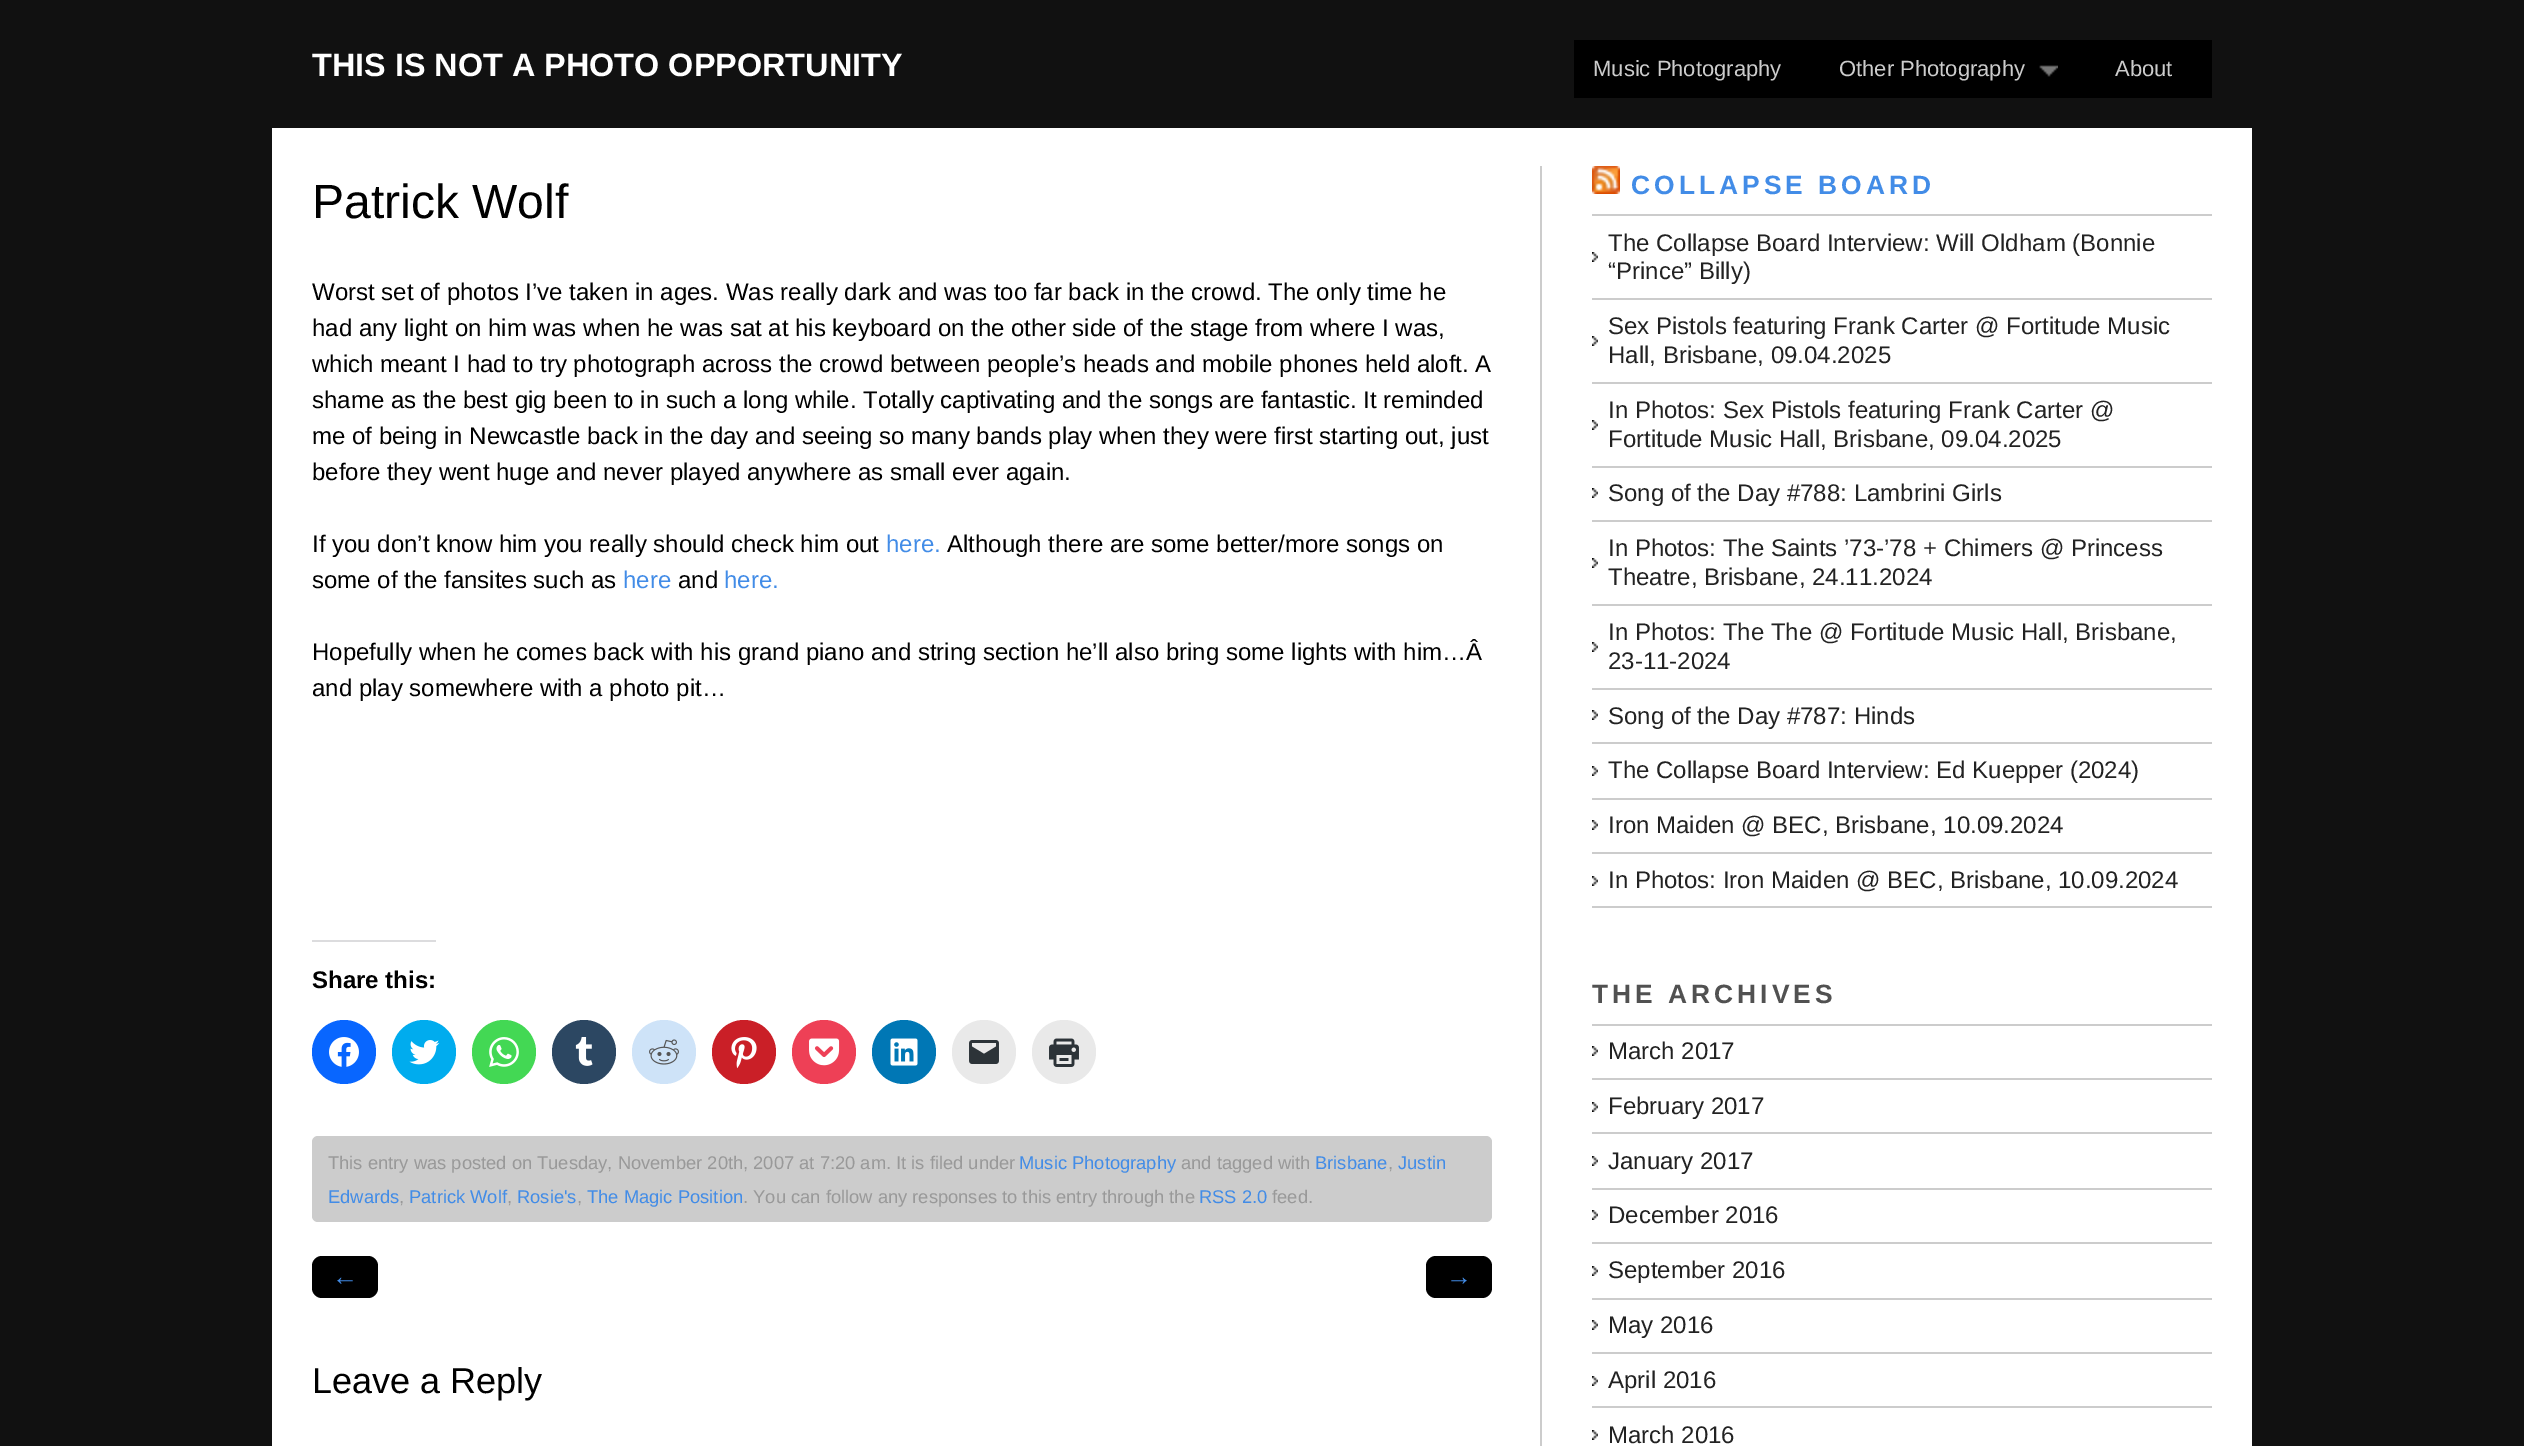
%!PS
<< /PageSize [2524 1446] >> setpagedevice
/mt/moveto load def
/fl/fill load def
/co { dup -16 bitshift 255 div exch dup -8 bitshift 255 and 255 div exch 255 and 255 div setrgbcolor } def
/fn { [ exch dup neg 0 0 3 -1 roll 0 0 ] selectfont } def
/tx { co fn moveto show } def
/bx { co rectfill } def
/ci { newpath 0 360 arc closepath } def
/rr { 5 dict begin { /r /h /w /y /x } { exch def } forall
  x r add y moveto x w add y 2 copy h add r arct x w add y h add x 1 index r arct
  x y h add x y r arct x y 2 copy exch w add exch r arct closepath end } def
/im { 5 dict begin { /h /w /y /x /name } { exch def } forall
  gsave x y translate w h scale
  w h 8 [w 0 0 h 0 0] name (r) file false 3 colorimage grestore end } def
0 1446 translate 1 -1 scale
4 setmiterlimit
0 0 2524 1446 16#111111 bx
1574 40 638 58 16#000000 bx
(media/1.raw) 2039 65 19 12 im
272 128 1980 1318 16#FFFFFF bx
1540 166 2 1280 16#CCCCCC bx
312 940 124 2 16#DCDCDE bx
16#0866FF co
344 1052 32 ci fl
(media/2.raw) 329 1037 30 30 im
16#00ACEE co
424 1052 32 ci fl
(media/3.raw) 409 1040 31 25 im
16#43D854 co
504 1052 32 ci fl
(media/4.raw) 489 1037 30 30 im
16#2C4762 co
584 1052 32 ci fl
(media/5.raw) 575 1037 18 29 im
16#CEE3F8 co
664 1052 32 ci fl
(media/6.raw) 649 1039 30 26 im
16#CA1F27 co
744 1052 32 ci fl
(media/7.raw) 731 1037 26 32 im
16#EE4056 co
824 1052 32 ci fl
(media/8.raw) 809 1038 31 28 im
16#0077B5 co
904 1052 32 ci fl
(media/9.raw) 890 1038 28 28 im
16#E9E9E9 co
984 1052 32 ci fl
(media/10.raw) 969 1040 30 24 im
1064 1052 32 ci fl
(media/11.raw) 1049 1038 30 29 im
16#CCCCCC co
312 1136 1180 86 6 rr fl
16#000000 co
312 1256 66 42 10 rr fl
1426 1256 66 42 10 rr fl
1592 214 620 2 16#CCCCCC bx
(media/12.raw) 1592 166 28 28 im
(media/13.raw) 1592 252 6 10 im
1592 298 620 2 16#CCCCCC bx
(media/13.raw) 1592 336 6 10 im
1592 382 620 2 16#CCCCCC bx
(media/13.raw) 1592 420 6 10 im
1592 466 620 2 16#CCCCCC bx
(media/13.raw) 1592 488 6 10 im
1592 520 620 2 16#CCCCCC bx
(media/13.raw) 1592 558 6 10 im
1592 604 620 2 16#CCCCCC bx
(media/13.raw) 1592 642 6 10 im
1592 688 620 2 16#CCCCCC bx
(media/13.raw) 1592 710 6 10 im
1592 742 620 2 16#CCCCCC bx
(media/13.raw) 1592 766 6 10 im
1592 798 620 2 16#CCCCCC bx
(media/13.raw) 1592 820 6 10 im
1592 852 620 2 16#CCCCCC bx
(media/13.raw) 1592 876 6 10 im
1592 906 620 2 16#CCCCCC bx
1592 1024 620 2 16#CCCCCC bx
(media/13.raw) 1592 1046 6 10 im
1592 1078 620 2 16#CCCCCC bx
(media/13.raw) 1592 1102 6 10 im
1592 1132 620 2 16#CCCCCC bx
(media/13.raw) 1592 1156 6 10 im
1592 1188 620 2 16#CCCCCC bx
(media/13.raw) 1592 1210 6 10 im
1592 1242 620 2 16#CCCCCC bx
(media/13.raw) 1592 1266 6 10 im
1592 1298 620 2 16#CCCCCC bx
(media/13.raw) 1592 1320 6 10 im
1592 1352 620 2 16#CCCCCC bx
(media/13.raw) 1592 1376 6 10 im
1592 1406 620 2 16#CCCCCC bx
(media/13.raw) 1592 1430 6 10 im
(THIS IS NOT A PHOTO OPPORTUNITY) 312 76 /LiberationSans-Bold 32.4 16#FFFFFF tx
(Music Photography) 1593 76 /LiberationSans-Regular 22 16#CCCCCC tx
(Other Photography) 1839 76 /LiberationSans-Regular 22 16#CCCCCC tx
(About) 2115 76 /LiberationSans-Regular 22 16#CCCCCC tx
(Patrick Wolf) 312 218 /LiberationSans-Regular 48 16#000000 tx
(Worst set of photos I’ve taken in ages. Was really dark and was too far back in the crowd. The only time he) 312 300 /LiberationSans-Regular 24 16#000000 tx
(had any light on him was when he was sat at his keyboard on the other side of the stage from where I was,) 312 336 /LiberationSans-Regular 24 16#000000 tx
(which meant I had to try photograph across the crowd between people’s heads and mobile phones held aloft. A) 312 372 /LiberationSans-Regular 24 16#000000 tx
(shame as the best gig been to in such a long while. Totally captivating and the songs are fantastic. It reminded) 312 408 /LiberationSans-Regular 24 16#000000 tx
(me of being in Newcastle back in the day and seeing so many bands play when they were first starting out, just) 312 444 /LiberationSans-Regular 24 16#000000 tx
(before they went huge and never played anywhere as small ever again.) 312 480 /LiberationSans-Regular 24 16#000000 tx
(If you don’t know him you really should check him out) 312 552 /LiberationSans-Regular 24 16#000000 tx
(here.) 886 552 /LiberationSans-Regular 24 16#428CE7 tx
(Although there are some better/more songs on) 947 552 /LiberationSans-Regular 24 16#000000 tx
(some of the fansites such as) 312 588 /LiberationSans-Regular 24 16#000000 tx
(here) 623 588 /LiberationSans-Regular 24 16#428CE7 tx
(and) 678 588 /LiberationSans-Regular 24 16#000000 tx
(here.) 724 588 /LiberationSans-Regular 24 16#428CE7 tx
(Hopefully when he comes back with his grand piano and string section he’ll also bring some lights with him…Â) 312 660 /LiberationSans-Regular 24 16#000000 tx
(and play somewhere with a photo pit…) 312 696 /LiberationSans-Regular 24 16#000000 tx
(Share this:) 312 988 /LiberationSans-Bold 24 16#000000 tx
(This entry was posted on Tuesday, November 20th, 2007 at 7:20 am. It is filed under) 328 1169 /LiberationSans-Regular 18.35 16#999999 tx
(Music Photography) 1019 1169 /LiberationSans-Regular 18.35 16#428CE7 tx
(and tagged with) 1181 1169 /LiberationSans-Regular 18.35 16#999999 tx
(Brisbane) 1315 1169 /LiberationSans-Regular 18.35 16#428CE7 tx
(,) 1388 1169 /LiberationSans-Regular 18.35 16#999999 tx
(Justin) 1398 1169 /LiberationSans-Regular 18.35 16#428CE7 tx
(Edwards) 328 1203 /LiberationSans-Regular 18.35 16#428CE7 tx
(,) 399 1203 /LiberationSans-Regular 18.35 16#999999 tx
(Patrick Wolf) 409 1203 /LiberationSans-Regular 18.35 16#428CE7 tx
(,) 507 1203 /LiberationSans-Regular 18.35 16#999999 tx
(Rosie's) 517 1203 /LiberationSans-Regular 18.35 16#428CE7 tx
(,) 577 1203 /LiberationSans-Regular 18.35 16#999999 tx
(The Magic Position) 587 1203 /LiberationSans-Regular 18.35 16#428CE7 tx
(. You can follow any responses to this entry through the) 743 1203 /LiberationSans-Regular 18.35 16#999999 tx
(RSS 2.0) 1199 1203 /LiberationSans-Regular 18.35 16#428CE7 tx
(feed.) 1272 1203 /LiberationSans-Regular 18.35 16#999999 tx
(←) 332 1285 /LiberationSans-Bold 26 16#428CE7 tx
(→) 1446 1285 /LiberationSans-Bold 26 16#428CE7 tx
(Leave a Reply) 312 1393 /LiberationSans-Regular 36 16#000000 tx
/LiberationSans-Bold 26.4 fn
16#428CE7 co
1631 194 mt 4 0 (COLLAPSE BOARD) ashow
(The Collapse Board Interview: Will Oldham \(Bonnie) 1608 251 /LiberationSans-Regular 24 16#222222 tx
(“Prince” Billy\)) 1608 279 /LiberationSans-Regular 24 16#222222 tx
(Sex Pistols featuring Frank Carter @ Fortitude Music) 1608 334 /LiberationSans-Regular 24 16#222222 tx
(Hall, Brisbane, 09.04.2025) 1608 363 /LiberationSans-Regular 24 16#222222 tx
(In Photos: Sex Pistols featuring Frank Carter @) 1608 418 /LiberationSans-Regular 24 16#222222 tx
(Fortitude Music Hall, Brisbane, 09.04.2025) 1608 447 /LiberationSans-Regular 24 16#222222 tx
(Song of the Day #788: Lambrini Girls) 1608 501 /LiberationSans-Regular 24 16#222222 tx
(In Photos: The Saints ’73-’78 + Chimers @ Princess) 1608 556 /LiberationSans-Regular 24 16#222222 tx
(Theatre, Brisbane, 24.11.2024) 1608 585 /LiberationSans-Regular 24 16#222222 tx
(In Photos: The The @ Fortitude Music Hall, Brisbane,) 1608 640 /LiberationSans-Regular 24 16#222222 tx
(23-11-2024) 1608 669 /LiberationSans-Regular 24 16#222222 tx
(Song of the Day #787: Hinds) 1608 724 /LiberationSans-Regular 24 16#222222 tx
(The Collapse Board Interview: Ed Kuepper \(2024\)) 1608 778 /LiberationSans-Regular 24 16#222222 tx
(Iron Maiden @ BEC, Brisbane, 10.09.2024) 1608 833 /LiberationSans-Regular 24 16#222222 tx
(In Photos: Iron Maiden @ BEC, Brisbane, 10.09.2024) 1608 888 /LiberationSans-Regular 24 16#222222 tx
/LiberationSans-Bold 26.4 fn
16#515151 co
1592 1003 mt 4 0 (THE ARCHIVES) ashow
(March 2017) 1608 1059 /LiberationSans-Regular 24 16#222222 tx
(February 2017) 1608 1114 /LiberationSans-Regular 24 16#222222 tx
(January 2017) 1608 1169 /LiberationSans-Regular 24 16#222222 tx
(December 2016) 1608 1223 /LiberationSans-Regular 24 16#222222 tx
(September 2016) 1608 1278 /LiberationSans-Regular 24 16#222222 tx
(May 2016) 1608 1333 /LiberationSans-Regular 24 16#222222 tx
(April 2016) 1608 1388 /LiberationSans-Regular 24 16#222222 tx
(March 2016) 1608 1443 /LiberationSans-Regular 24 16#222222 tx
showpage
